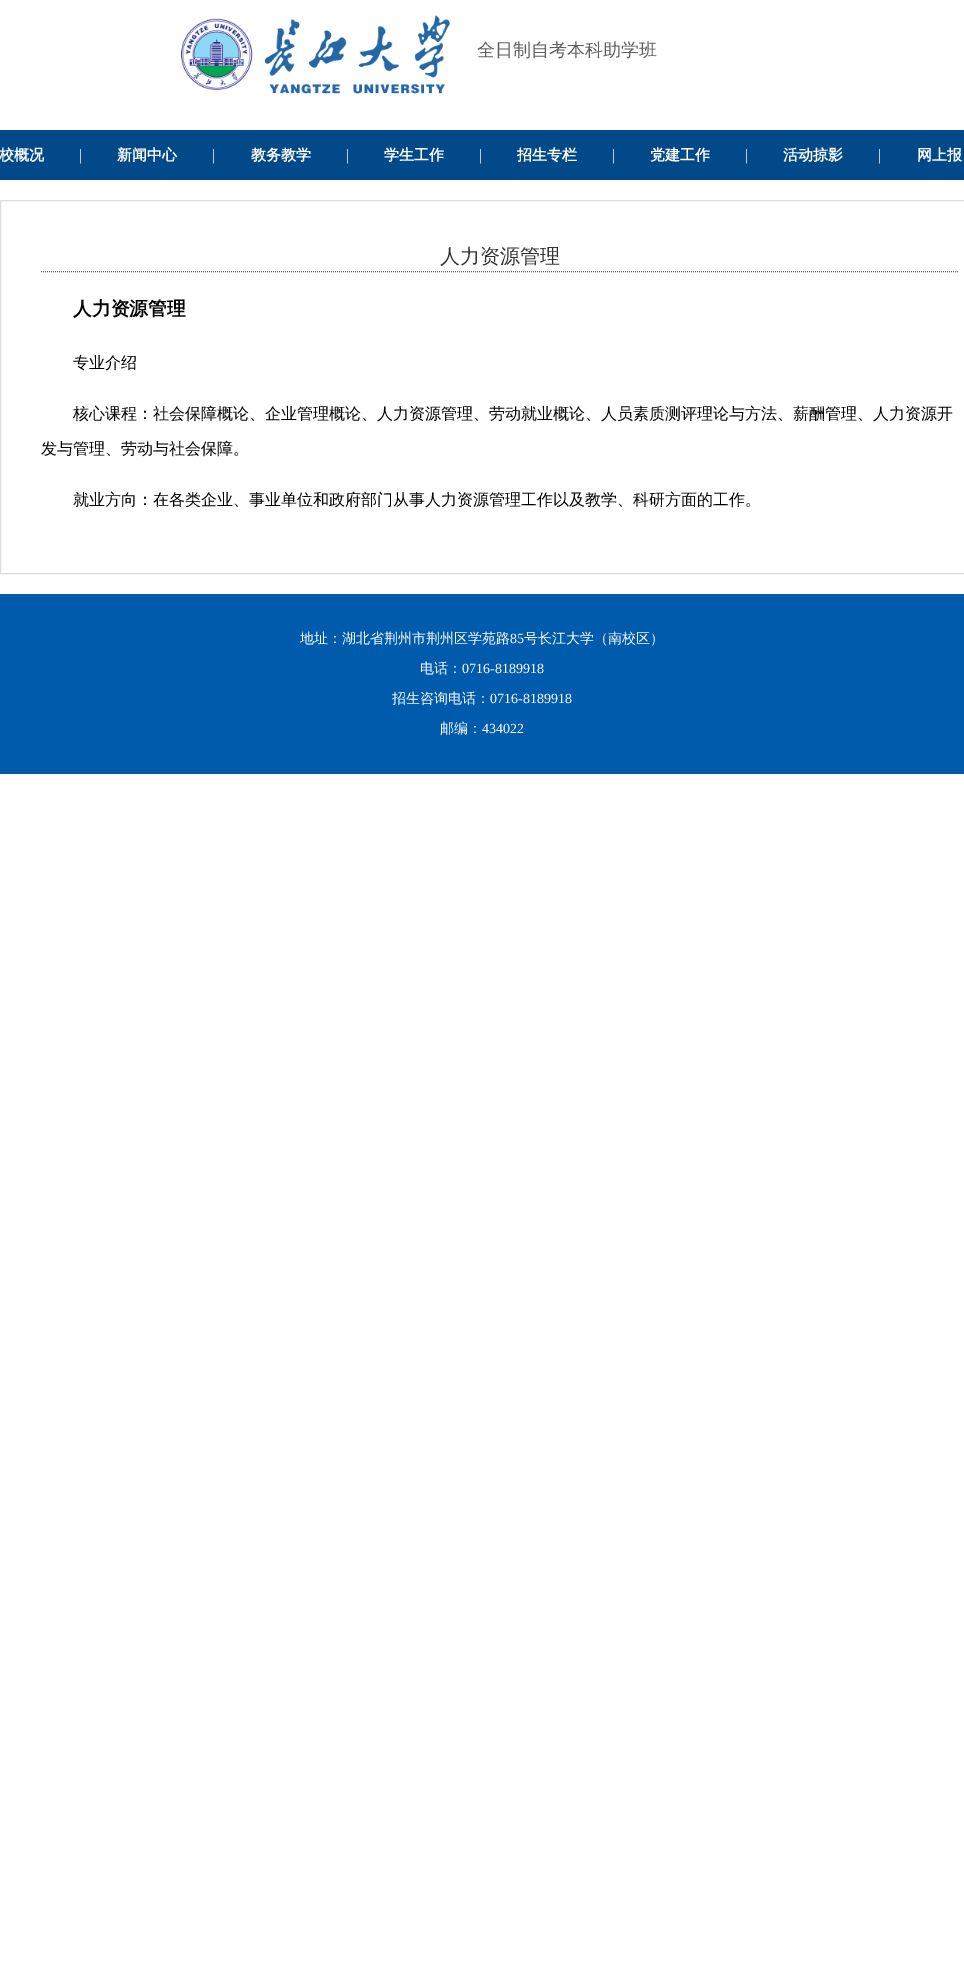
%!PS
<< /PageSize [964 1984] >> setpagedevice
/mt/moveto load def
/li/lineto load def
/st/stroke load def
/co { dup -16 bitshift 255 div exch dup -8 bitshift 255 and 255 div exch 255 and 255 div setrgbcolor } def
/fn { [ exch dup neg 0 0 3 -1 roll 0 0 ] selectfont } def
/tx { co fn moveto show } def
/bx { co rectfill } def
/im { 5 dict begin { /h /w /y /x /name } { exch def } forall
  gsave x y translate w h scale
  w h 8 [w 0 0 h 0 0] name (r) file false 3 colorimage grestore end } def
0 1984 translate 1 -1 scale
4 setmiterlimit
0 0 964 1984 16#FFFFFF bx
(media/1.raw) 181 15 269 79 im
0 130 964 50 16#014989 bx
16#DDDDDD co
.5 200.5 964 373 rectstroke
16#5D5D5D co
[1 1] 0 setdash
41 271.5 mt 959 271.5 li st
0 594 964 180 16#005BAC bx
(全日制自考本科助学班) 477 56 /WenQuanYiZenHei-Medium 18 16#5D5D5D tx
(校概况) -1 160 /WenQuanYiZenHei-Bold 15 16#FFFFFF tx
(|) 79 160 /LiberationSerif-Regular 16 16#FFFFFF tx
(新闻中心) 117 160 /WenQuanYiZenHei-Bold 15 16#FFFFFF tx
(|) 212 160 /LiberationSerif-Regular 16 16#FFFFFF tx
(教务教学) 251 160 /WenQuanYiZenHei-Bold 15 16#FFFFFF tx
(|) 346 160 /LiberationSerif-Regular 16 16#FFFFFF tx
(学生工作) 384 160 /WenQuanYiZenHei-Bold 15 16#FFFFFF tx
(|) 479 160 /LiberationSerif-Regular 16 16#FFFFFF tx
(招生专栏) 517 160 /WenQuanYiZenHei-Bold 15 16#FFFFFF tx
(|) 612 160 /LiberationSerif-Regular 16 16#FFFFFF tx
(党建工作) 650 160 /WenQuanYiZenHei-Bold 15 16#FFFFFF tx
(|) 745 160 /LiberationSerif-Regular 16 16#FFFFFF tx
(活动掠影) 783 160 /WenQuanYiZenHei-Bold 15 16#FFFFFF tx
(|) 878 160 /LiberationSerif-Regular 16 16#FFFFFF tx
(网上报) 917 160 /WenQuanYiZenHei-Bold 15 16#FFFFFF tx
(人力资源管理) 440 263 /WenQuanYiZenHei-Medium 20 16#333333 tx
(人力资源管理) 73 315 /WenQuanYiZenHei-Bold 18.75 16#000000 tx
(专业介绍) 73 368 /WenQuanYiZenHei-Medium 16 16#000000 tx
(核心课程：社会保障概论、企业管理概论、人力资源管理、劳动就业概论、人员素质测评理论与方法、薪酬管理、人力资源开) 73 419 /WenQuanYiZenHei-Medium 16 16#000000 tx
(发与管理、劳动与社会保障。) 41 454 /WenQuanYiZenHei-Medium 16 16#000000 tx
(就业方向：在各类企业、事业单位和政府部门从事人力资源管理工作以及教学、科研方面的工作。) 73 505 /WenQuanYiZenHei-Medium 16 16#000000 tx
(地址：湖北省荆州市荆州区学苑路) 300 643 /WenQuanYiZenHei-Medium 14 16#FFFFFF tx
(85) 510 643 /LiberationSerif-Regular 14 16#FFFFFF tx
(号长江大学（南校区）) 524 643 /WenQuanYiZenHei-Medium 14 16#FFFFFF tx
(电话：) 420 673 /WenQuanYiZenHei-Medium 14 16#FFFFFF tx
(0716-8189918) 462 673 /LiberationSerif-Regular 14 16#FFFFFF tx
(招生咨询电话：) 392 703 /WenQuanYiZenHei-Medium 14 16#FFFFFF tx
(0716-8189918) 490 703 /LiberationSerif-Regular 14 16#FFFFFF tx
(邮编：) 440 733 /WenQuanYiZenHei-Medium 14 16#FFFFFF tx
(434022) 482 733 /LiberationSerif-Regular 14 16#FFFFFF tx
showpage
